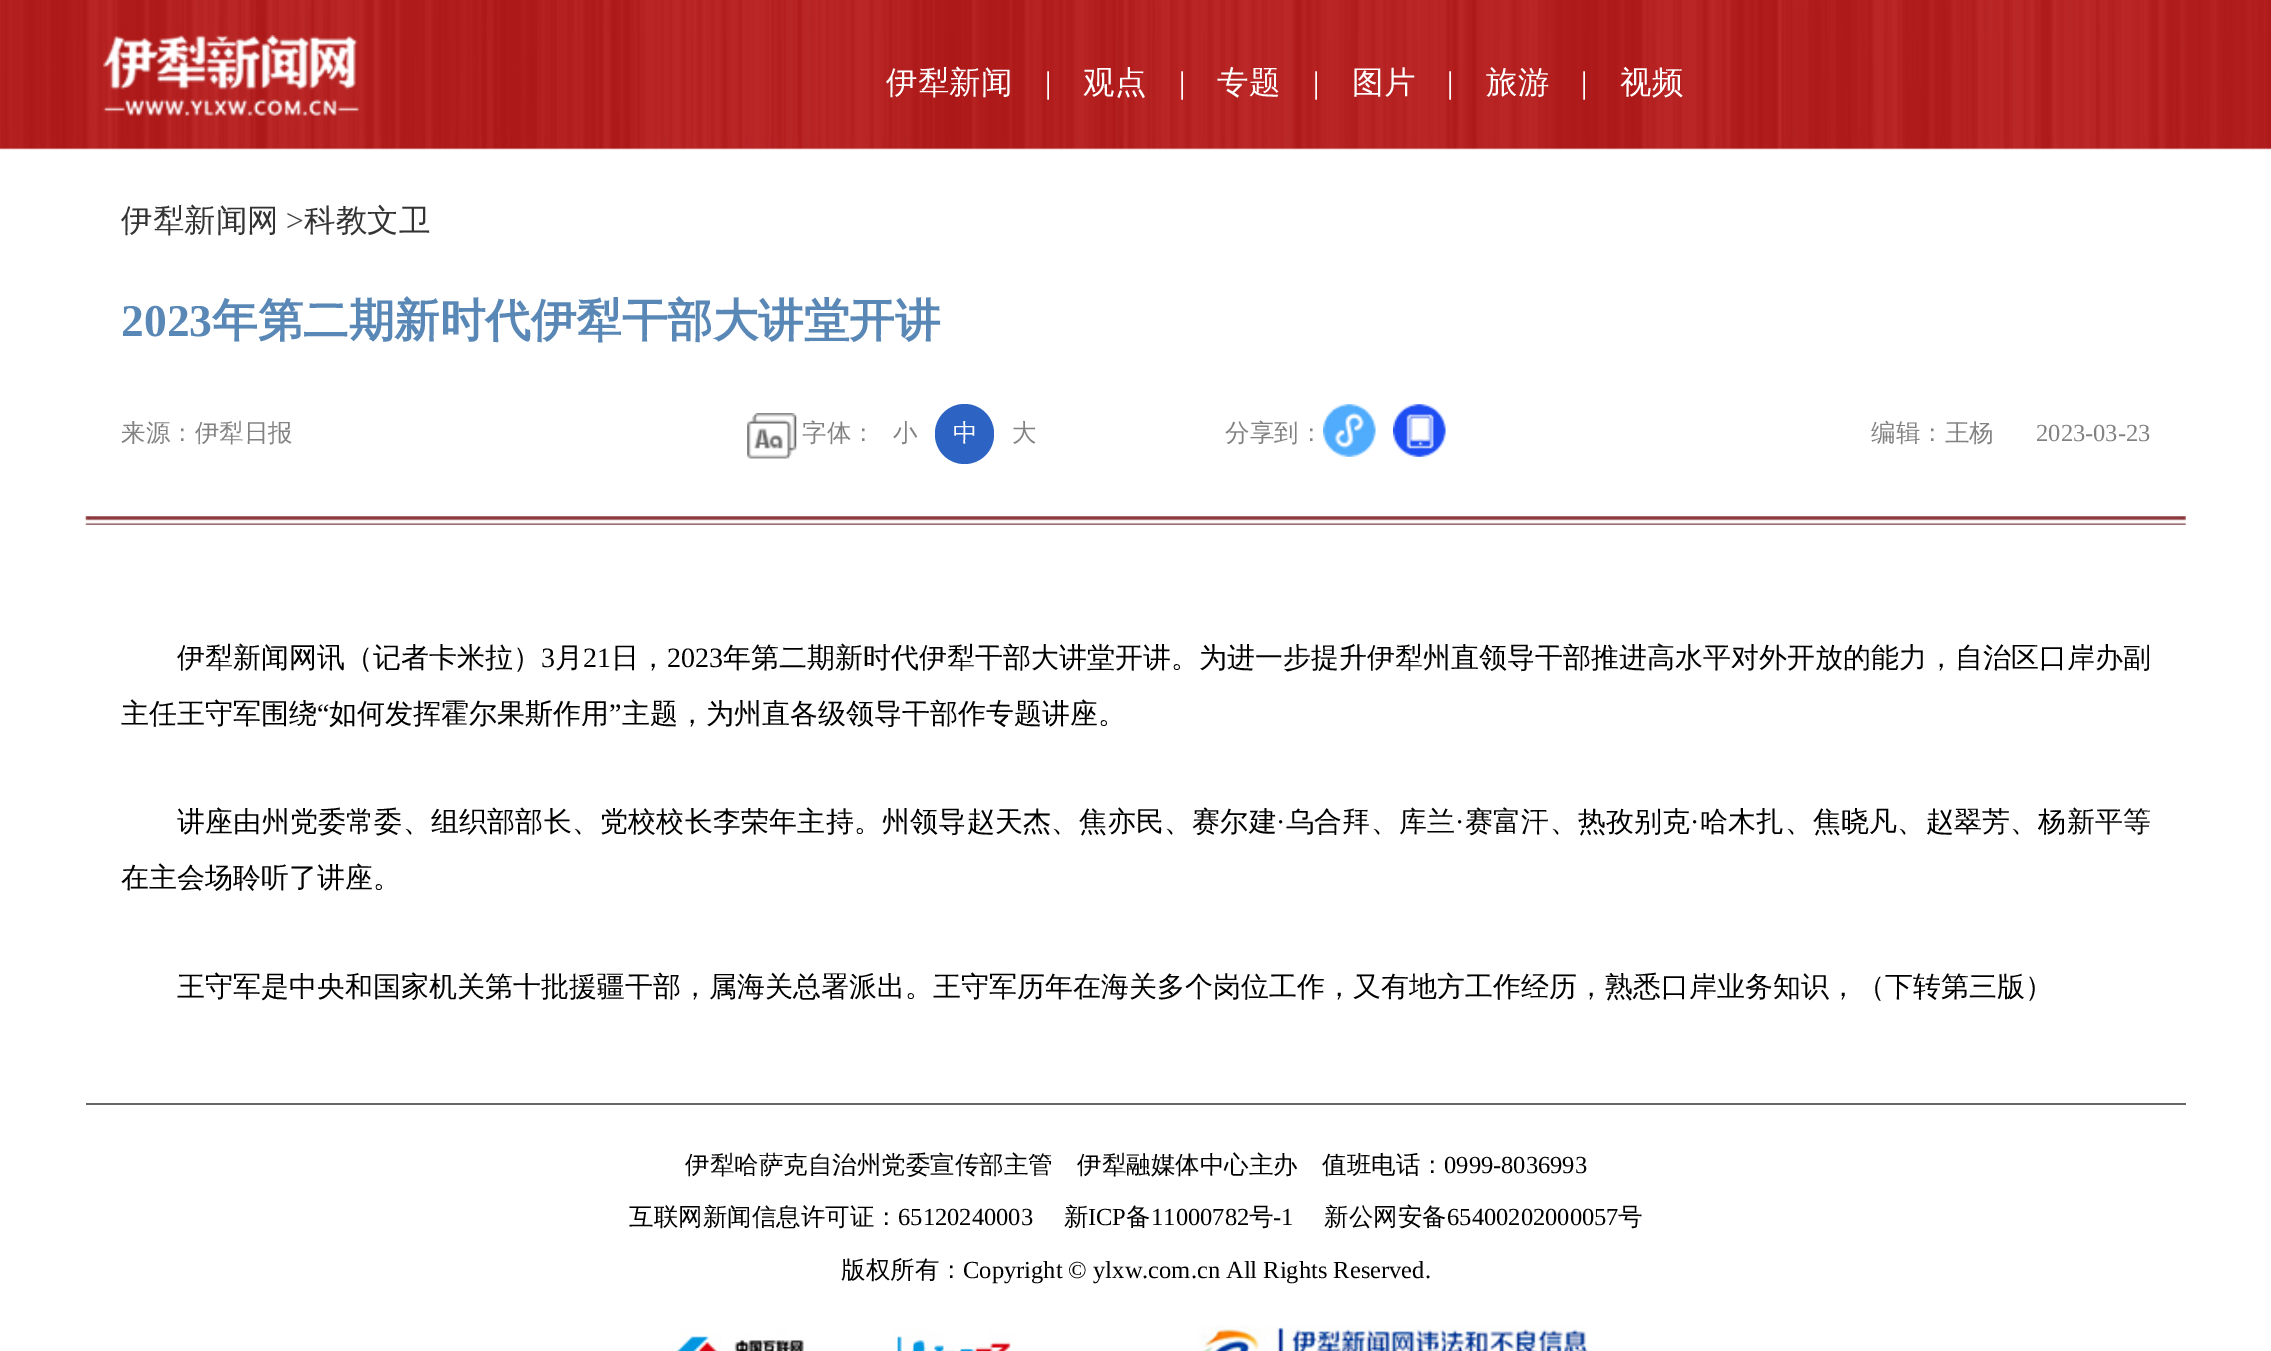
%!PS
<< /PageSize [2271 1351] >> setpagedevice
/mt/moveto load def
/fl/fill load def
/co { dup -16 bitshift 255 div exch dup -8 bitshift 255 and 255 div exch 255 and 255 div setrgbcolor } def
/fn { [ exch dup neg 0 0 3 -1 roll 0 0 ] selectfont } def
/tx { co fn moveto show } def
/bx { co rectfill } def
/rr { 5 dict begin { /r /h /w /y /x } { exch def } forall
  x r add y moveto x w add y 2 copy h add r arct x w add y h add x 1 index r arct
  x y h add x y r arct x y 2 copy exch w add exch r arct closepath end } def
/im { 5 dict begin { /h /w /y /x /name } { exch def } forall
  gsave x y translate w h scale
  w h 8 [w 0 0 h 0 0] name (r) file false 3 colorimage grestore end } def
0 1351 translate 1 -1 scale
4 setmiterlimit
0 0 2271 1351 16#FFFFFF bx
(media/1.raw) 0 0 2271 150 im
(media/2.raw) 103 35 256 81 im
(media/3.raw) 747 413 50 46 im
16#2D63C3 co
935 404 59 60 29.5 rr fl
(media/4.raw) 1323 404 53 53 im
(media/5.raw) 1393 404 53 53 im
(media/6.raw) 85 516 2101 9 im
86 1103 2100 2 16#666666 bx
(media/7.raw) 668 1325 920 26 im
(伊犁新闻) 886 93 /WenQuanYiZenHei-Medium 31.5 16#FFFFFF tx
(|) 1045 93 /LiberationSerif-Regular 31.5 16#FFFFFF tx
(观点) 1083 93 /WenQuanYiZenHei-Medium 31.5 16#FFFFFF tx
(|) 1179 93 /LiberationSerif-Regular 31.5 16#FFFFFF tx
(专题) 1217 93 /WenQuanYiZenHei-Medium 31.5 16#FFFFFF tx
(|) 1313 93 /LiberationSerif-Regular 31.5 16#FFFFFF tx
(图片) 1352 93 /WenQuanYiZenHei-Medium 31.5 16#FFFFFF tx
(|) 1447 93 /LiberationSerif-Regular 31.5 16#FFFFFF tx
(旅游) 1486 93 /WenQuanYiZenHei-Medium 31.5 16#FFFFFF tx
(|) 1581 93 /LiberationSerif-Regular 31.5 16#FFFFFF tx
(视频) 1620 93 /WenQuanYiZenHei-Medium 31.5 16#FFFFFF tx
(伊犁新闻网) 121 231 /WenQuanYiZenHei-Medium 31.5 16#333333 tx
(>) 286 231 /LiberationSerif-Regular 31.5 16#454545 tx
(科教文卫) 304 231 /WenQuanYiZenHei-Medium 31.5 16#333333 tx
(2023) 121 336 /LiberationSerif-Bold 45.5 16#5988B6 tx
(年第二期新时代伊犁干部大讲堂开讲) 212 336 /WenQuanYiZenHei-Bold 45.5 16#5988B6 tx
(来源：伊犁日报) 121 441 /WenQuanYiZenHei-Medium 24.5 16#828282 tx
(字体：) 802 441 /WenQuanYiZenHei-Medium 24.5 16#828282 tx
(小) 893 441 /WenQuanYiZenHei-Medium 24.5 16#828282 tx
(中) 953 441 /WenQuanYiZenHei-Medium 24.5 16#FFFFFF tx
(大) 1012 441 /WenQuanYiZenHei-Medium 24.5 16#828282 tx
(分享到：) 1225 441 /WenQuanYiZenHei-Medium 24.5 16#828282 tx
(编辑：王杨) 1871 441 /WenQuanYiZenHei-Medium 24.5 16#828282 tx
(2023-03-23) 2036 441 /LiberationSerif-Regular 24.5 16#828282 tx
(伊犁新闻网讯（记者卡米拉）) 177 667 /WenQuanYiZenHei-Medium 28 16#000000 tx
(3) 541 667 /LiberationSerif-Regular 28 16#000000 tx
(月) 555 667 /WenQuanYiZenHei-Medium 28 16#000000 tx
(21) 583 667 /LiberationSerif-Regular 28 16#000000 tx
(日，) 611 667 /WenQuanYiZenHei-Medium 28 16#000000 tx
(2023) 667 667 /LiberationSerif-Regular 28 16#000000 tx
(年第二期新时代伊犁干部大讲堂开讲。为进一步提升伊犁州直领导干部推进高水平对外开放的能力，自治区口岸办副) 723 667 /WenQuanYiZenHei-Medium 28 16#000000 tx
(主任王守军围绕) 121 723 /WenQuanYiZenHei-Medium 28 16#000000 tx
(“) 317 723 /LiberationSerif-Regular 28 16#000000 tx
(如何发挥霍尔果斯作用) 329 723 /WenQuanYiZenHei-Medium 28 16#000000 tx
(”) 609 723 /LiberationSerif-Regular 28 16#000000 tx
(主题，为州直各级领导干部作专题讲座。) 622 723 /WenQuanYiZenHei-Medium 28 16#000000 tx
177 831 mt .2 0 (讲座由州党委常委、组织部部长、党校校长李荣年主持。州领导赵天杰、焦亦民、赛尔建) ashow
/LiberationSerif-Regular 28 fn
1276 831 mt .2 0 (·) ashow
/WenQuanYiZenHei-Medium 28 fn
1286 831 mt .2 0 (乌合拜、库兰) ashow
/LiberationSerif-Regular 28 fn
1455 831 mt .2 0 (·) ashow
/WenQuanYiZenHei-Medium 28 fn
1465 831 mt .2 0 (赛富汗、热孜别克) ashow
/LiberationSerif-Regular 28 fn
1690 831 mt .2 0 (·) ashow
/WenQuanYiZenHei-Medium 28 fn
1700 831 mt .2 0 (哈木扎、焦晓凡、赵翠芳、杨新平等) ashow
(在主会场聆听了讲座。) 121 887 /WenQuanYiZenHei-Medium 28 16#000000 tx
(王守军是中央和国家机关第十批援疆干部，属海关总署派出。王守军历年在海关多个岗位工作，又有地方工作经历，熟悉口岸业务知识，（下转第三版）) 177 996 /WenQuanYiZenHei-Medium 28 16#000000 tx
(伊犁哈萨克自治州党委宣传部主管　伊犁融媒体中心主办　值班电话：) 685 1173 /WenQuanYiZenHei-Medium 24.5 16#000000 tx
(0999-8036993) 1444 1173 /LiberationSerif-Regular 24.5 16#000000 tx
(互联网新闻信息许可证：) 629 1225 /WenQuanYiZenHei-Medium 24.5 16#000000 tx
(65120240003) 898 1225 /LiberationSerif-Regular 24.5 16#000000 tx
(新) 1064 1225 /WenQuanYiZenHei-Medium 24.5 16#000000 tx
(ICP) 1088 1225 /LiberationSerif-Regular 24.5 16#000000 tx
(备) 1126 1225 /WenQuanYiZenHei-Medium 24.5 16#000000 tx
(11000782) 1151 1225 /LiberationSerif-Regular 24.5 16#000000 tx
(号) 1249 1225 /WenQuanYiZenHei-Medium 24.5 16#000000 tx
(-1) 1273 1225 /LiberationSerif-Regular 24.5 16#000000 tx
(新公网安备) 1324 1225 /WenQuanYiZenHei-Medium 24.5 16#000000 tx
(65400202000057) 1447 1225 /LiberationSerif-Regular 24.5 16#000000 tx
(号) 1618 1225 /WenQuanYiZenHei-Medium 24.5 16#000000 tx
(版权所有：) 841 1278 /WenQuanYiZenHei-Medium 24.5 16#000000 tx
(Copyright © ylxw.com.cn All Rights Reserved.) 963 1278 /LiberationSerif-Regular 24.5 16#000000 tx
showpage
